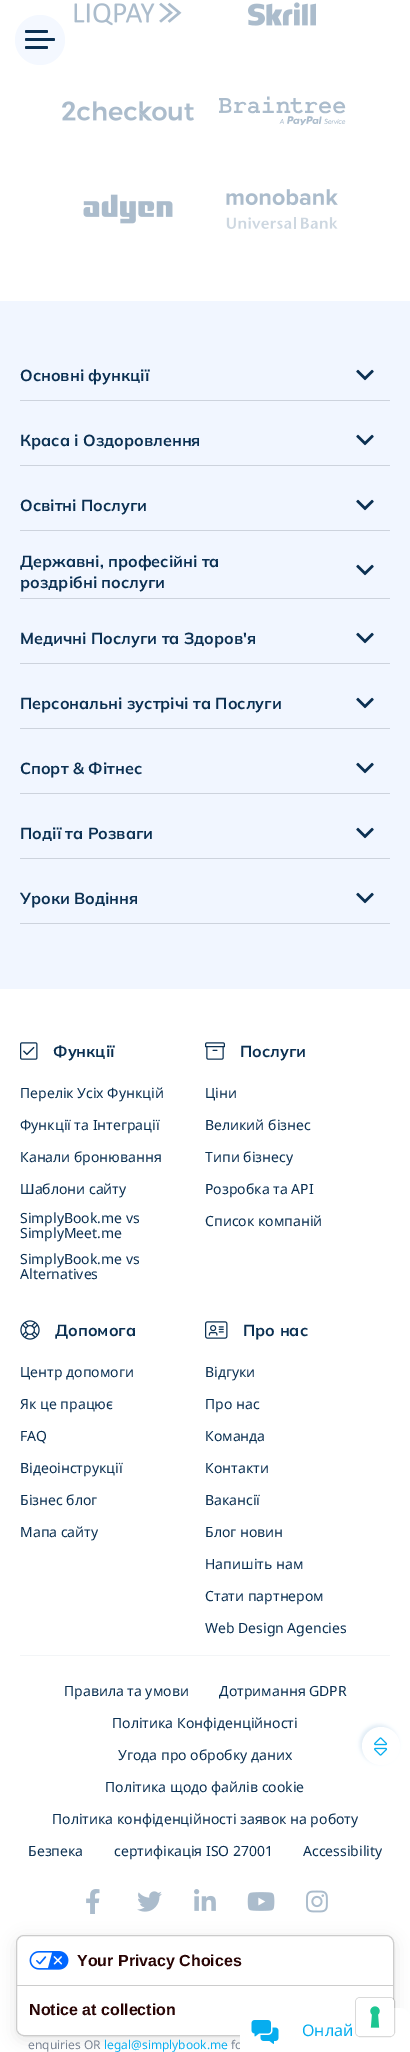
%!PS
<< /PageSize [410 2052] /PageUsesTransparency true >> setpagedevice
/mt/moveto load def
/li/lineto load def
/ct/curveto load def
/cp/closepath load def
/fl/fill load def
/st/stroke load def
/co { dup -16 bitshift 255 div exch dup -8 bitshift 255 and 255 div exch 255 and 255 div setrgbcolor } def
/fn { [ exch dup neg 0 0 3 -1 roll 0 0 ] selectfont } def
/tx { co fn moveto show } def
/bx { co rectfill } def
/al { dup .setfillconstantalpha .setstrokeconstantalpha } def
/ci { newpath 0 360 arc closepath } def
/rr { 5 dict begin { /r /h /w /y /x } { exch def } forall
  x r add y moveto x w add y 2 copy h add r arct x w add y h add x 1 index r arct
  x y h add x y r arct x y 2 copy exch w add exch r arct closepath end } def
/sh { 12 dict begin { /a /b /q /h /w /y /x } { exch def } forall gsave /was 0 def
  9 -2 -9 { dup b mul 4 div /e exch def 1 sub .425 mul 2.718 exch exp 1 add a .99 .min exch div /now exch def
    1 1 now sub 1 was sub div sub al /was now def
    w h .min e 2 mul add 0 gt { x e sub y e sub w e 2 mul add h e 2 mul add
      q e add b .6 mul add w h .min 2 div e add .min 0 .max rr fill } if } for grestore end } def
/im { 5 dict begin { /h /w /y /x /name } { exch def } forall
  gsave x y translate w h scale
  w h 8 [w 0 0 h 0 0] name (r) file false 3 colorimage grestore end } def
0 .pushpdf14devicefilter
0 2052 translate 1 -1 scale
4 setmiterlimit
0 0 410 2052 16#FFFFFF bx
16#F4F8FF co
40 40 25 ci fl
16#0B3052 co
25 30 23 3 1.5 rr fl
25 38 30 3 1.5 rr fl
25 46 23 3 1.5 rr fl
(media/1.raw) 74 2 108 24 im
(media/2.raw) 248 2 68 24 im
(media/3.raw) 62 101 132 20 im
(media/4.raw) 219 96 127 30 im
(media/5.raw) 83 194 90 30 im
(media/6.raw) 226 189 112 40 im
0 301 410 688 16#F1F6FF bx
20 400 370 1 16#CDD3DD bx
(media/7.raw) 356 369 18 12 im
20 465 370 1 16#CDD3DD bx
(media/7.raw) 356 434 18 12 im
20 530 370 1 16#CDD3DD bx
(media/7.raw) 356 499 18 12 im
20 598 370 1 16#CDD3DD bx
(media/7.raw) 356 564 18 12 im
20 663 370 1 16#CDD3DD bx
(media/7.raw) 356 632 18 12 im
20 728 370 1 16#CDD3DD bx
(media/7.raw) 356 697 18 12 im
20 793 370 1 16#CDD3DD bx
(media/7.raw) 356 762 18 12 im
20 858 370 1 16#CDD3DD bx
(media/7.raw) 356 827 18 12 im
20 923 370 1 16#CDD3DD bx
(media/7.raw) 356 892 18 12 im
(media/8.raw) 20 1042 18 18 im
(media/9.raw) 205 1042 20 18 im
(media/10.raw) 20 1320 20 20 im
(media/11.raw) 205 1321 23 18 im
20 1655 370 1 16#F3F5F7 bx
(media/12.raw) 86 1889 14 25 im
(media/13.raw) 137 1891 25 21 im
(media/14.raw) 194 1889 22 22 im
(media/15.raw) 247 1892 28 19 im
(media/16.raw) 306 1890 22 23 im
16#5699C4 co
360 1725 38 38 19 2 .18 sh
16#FFFFFF co
381 1746 19 ci fl
(media/17.raw) 374 1737 14 19 im
16#000000 co
16 1939 378 101 8 8 .1 sh
16#FFFFFF co
16 1935 378 101 8 rr fl
0.2 al
16#000000 co
16.5 1935.5 377 100 7.5 rr st
1 al
17 1985 376 1 16#CCCCCC bx
(media/18.raw) 29 1951 40 19 im
(Основні функції) 20 381 /Mulish-Bold 16 16#0B3052 tx
(Краса і Оздоровлення) 20 446 /Mulish-Bold 16 16#0B3052 tx
(Освітні Послуги) 20 511 /Mulish-Bold 16 16#0B3052 tx
(Державні, професійні та) 20 567 /Mulish-Bold 16 16#0B3052 tx
(роздрібні послуги) 20 588 /Mulish-Bold 16 16#0B3052 tx
(Медичні Послуги та Здоров'я) 20 644 /Mulish-Bold 16 16#0B3052 tx
(Персональні зустрічі та Послуги) 20 709 /Mulish-Bold 16 16#0B3052 tx
(Спорт & Фітнес) 20 774 /Mulish-Bold 16 16#0B3052 tx
(Події та Розваги) 20 839 /Mulish-Bold 16 16#0B3052 tx
(Уроки Водіння) 20 904 /Mulish-Bold 16 16#0B3052 tx
(Функції) 53 1057 /Mulish-Bold 16 16#0B3052 tx
(Перелік Усіх Функцій) 20 1098 /NotoSans-Regular 14 16#0B3052 tx
(Функції та Інтеграції) 20 1130 /NotoSans-Regular 14 16#0B3052 tx
(Канали бронювання) 20 1162 /NotoSans-Regular 14 16#0B3052 tx
(Шаблони сайту) 20 1194 /NotoSans-Regular 14 16#0B3052 tx
(SimplyBook.me vs) 20 1223 /NotoSans-Regular 14 16#0B3052 tx
(SimplyMeet.me) 20 1238 /NotoSans-Regular 14 16#0B3052 tx
(SimplyBook.me vs) 20 1264 /NotoSans-Regular 14 16#0B3052 tx
(Alternatives) 20 1279 /NotoSans-Regular 14 16#0B3052 tx
(Послуги) 240 1057 /Mulish-Bold 16 16#0B3052 tx
(Ціни) 205 1098 /NotoSans-Regular 14 16#0B3052 tx
(Великий бізнес) 205 1130 /NotoSans-Regular 14 16#0B3052 tx
(Типи бізнесу) 205 1162 /NotoSans-Regular 14 16#0B3052 tx
(Розробка та API) 205 1194 /NotoSans-Regular 14 16#0B3052 tx
(Список компаній) 205 1226 /NotoSans-Regular 14 16#0B3052 tx
(Допомога) 55 1336 /Mulish-Bold 16 16#0B3052 tx
(Центр допомоги) 20 1377 /NotoSans-Regular 14 16#0B3052 tx
(Як це працює) 20 1409 /NotoSans-Regular 14 16#0B3052 tx
(FAQ) 20 1441 /NotoSans-Regular 14 16#0B3052 tx
(Відеоінструкції) 20 1473 /NotoSans-Regular 14 16#0B3052 tx
(Бізнес блог) 20 1505 /NotoSans-Regular 14 16#0B3052 tx
(Мапа сайту) 20 1537 /NotoSans-Regular 14 16#0B3052 tx
(Про нас) 243 1336 /Mulish-Bold 16 16#0B3052 tx
(Відгуки) 205 1377 /NotoSans-Regular 14 16#0B3052 tx
(Про нас) 205 1409 /NotoSans-Regular 14 16#0B3052 tx
(Команда) 205 1441 /NotoSans-Regular 14 16#0B3052 tx
(Контакти) 205 1473 /NotoSans-Regular 14 16#0B3052 tx
(Вакансії) 205 1505 /NotoSans-Regular 14 16#0B3052 tx
(Блог новин) 205 1537 /NotoSans-Regular 14 16#0B3052 tx
(Напишіть нам) 205 1569 /NotoSans-Regular 14 16#0B3052 tx
(Стати партнером) 205 1601 /NotoSans-Regular 14 16#0B3052 tx
(Web Design Agencies) 205 1633 /NotoSans-Regular 14 16#0B3052 tx
(Правила та умови) 64 1696 /NotoSans-Regular 14 16#0B3052 tx
(Дотримання GDPR) 219 1696 /NotoSans-Regular 14 16#0B3052 tx
(Політика Конфіденційності) 112 1728 /NotoSans-Regular 14 16#0B3052 tx
(Угода про обробку даних) 118 1760 /NotoSans-Regular 14 16#0B3052 tx
(Політика щодо файлів cookie) 105 1792 /NotoSans-Regular 14 16#0B3052 tx
(Політика конфіденційності заявок на роботу) 52 1824 /NotoSans-Regular 14 16#0B3052 tx
(Безпека) 28 1856 /NotoSans-Regular 14 16#0B3052 tx
(сертифікація ISO 27001) 114 1856 /NotoSans-Regular 14 16#0B3052 tx
(Accessibility) 303 1856 /NotoSans-Regular 14 16#0B3052 tx
(enquiries OR) 28 2049 /NotoSans-Regular 12 16#788291 tx
(legal@simplybook.me) 104 2049 /NotoSans-Regular 12 16#06ADEF tx
(fo) 231 2049 /NotoSans-Regular 12 16#788291 tx
(Your Privacy Choices) 77 1966 /LiberationSans-Bold 16 16#280404 tx
(Notice at collection) 29 2015 /LiberationSans-Bold 16 16#280404 tx
16#FFFFFF co
250 2008 mt 400 2008 li 405.5 2008 410 2012.5 410 2018 ct 410 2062 li 240 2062 li 240 2018 li 240 2012.5 244.5 2008 250 2008 ct cp fl
(media/19.raw) 251 2020 28 24 im
(Онлай) 302 2036 /NotoSans-Regular 16 16#06ADEF tx
0.15 al
16#000000 co
355.5 1997.5 39 39 4.5 rr st
1 al
16#FFFFFF co
356 1998 38 38 4 rr fl
(media/20.raw) 370 2006 10 22 im
.poppdf14devicefilter showpage
